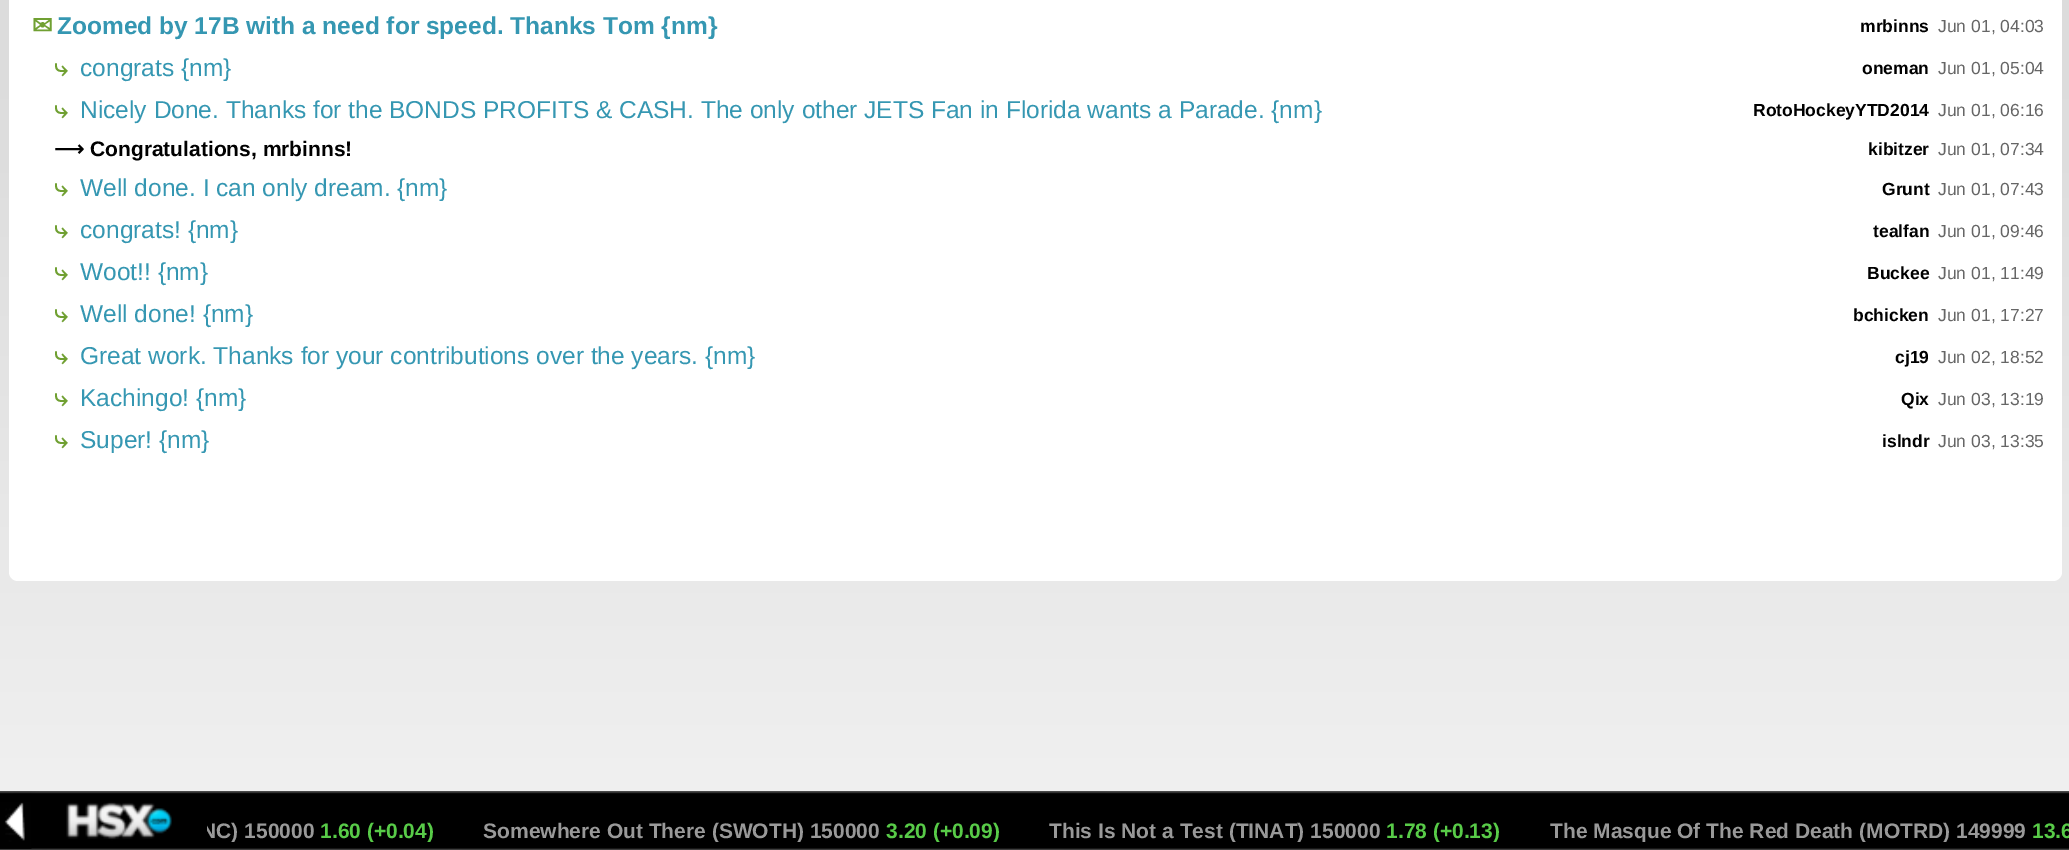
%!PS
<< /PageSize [2069 850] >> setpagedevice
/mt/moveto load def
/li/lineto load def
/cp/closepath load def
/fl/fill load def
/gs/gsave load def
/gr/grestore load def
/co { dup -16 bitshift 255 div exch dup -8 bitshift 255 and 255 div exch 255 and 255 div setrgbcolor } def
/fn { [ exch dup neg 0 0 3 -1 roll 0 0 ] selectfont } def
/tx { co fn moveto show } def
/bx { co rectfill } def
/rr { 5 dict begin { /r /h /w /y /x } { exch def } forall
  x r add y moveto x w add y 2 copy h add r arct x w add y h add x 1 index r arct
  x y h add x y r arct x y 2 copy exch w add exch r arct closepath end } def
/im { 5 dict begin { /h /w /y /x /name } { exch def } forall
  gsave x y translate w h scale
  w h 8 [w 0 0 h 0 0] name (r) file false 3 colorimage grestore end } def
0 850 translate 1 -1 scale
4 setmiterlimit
0 0 2069 850 16#FFFFFF bx
gs 0 0 mt 2069 0 li 2069 791 li 0 791 li cp clip newpath
<< /ShadingType 2 /ColorSpace /DeviceRGB /Coords [1035 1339 1035 -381] /Extend [true true] /Function << /FunctionType 3 /Domain [0 1] /Functions [<< /FunctionType 2 /Domain [0 1] /C0 [1 1 1] /C1 [.867 .867 .867] /N 1 >> << /FunctionType 2 /Domain [0 1] /C0 [.867 .867 .867] /C1 [.851 .851 .851] /N 1 >>] /Bounds [.7] /Encode [0 1 0 1] >> >> shfill gr
9 -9 2053 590 9 rr fl
(media/1.raw) 0 791 2069 59 im
(media/2.raw) 0 802 32 47 im
(✉) 32 34 /DejaVuSans-Bold 24.5 16#70A032 tx
(Zoomed by 17B with a need for speed. Thanks Tom {nm}) 57 34 /LiberationSans-Bold 24.5 16#3597B2 tx
(mrbinns) 1860 32 /LiberationSans-Bold 17.5 16#000000 tx
(Jun 01, 04:03) 1938 32 /LiberationSans-Regular 17.5 16#666666 tx
(⤷) 54 76 /FreeSerif-Bold 24.5 16#70A032 tx
(congrats {nm}) 80 76 /LiberationSans-Regular 24.5 16#3597B2 tx
(oneman) 1862 74 /LiberationSans-Bold 17.5 16#000000 tx
(Jun 01, 05:04) 1938 74 /LiberationSans-Regular 17.5 16#666666 tx
(⤷) 54 118 /FreeSerif-Bold 24.5 16#70A032 tx
(Nicely Done. Thanks for the BONDS PROFITS & CASH. The only other JETS Fan in Florida wants a Parade. {nm}) 80 118 /LiberationSans-Regular 24.5 16#3597B2 tx
(RotoHockeyYTD2014) 1753 116 /LiberationSans-Bold 17.5 16#000000 tx
(Jun 01, 06:16) 1938 116 /LiberationSans-Regular 17.5 16#666666 tx
(⟶) 54 156 /DejaVuSans-Bold 21 16#000000 tx
(Congratulations, mrbinns!) 90 156 /LiberationSans-Bold 21 16#000000 tx
(kibitzer) 1868 155 /LiberationSans-Bold 17.5 16#000000 tx
(Jun 01, 07:34) 1938 155 /LiberationSans-Regular 17.5 16#666666 tx
(⤷) 54 196 /FreeSerif-Bold 24.5 16#70A032 tx
(Well done. I can only dream. {nm}) 80 196 /LiberationSans-Regular 24.5 16#3597B2 tx
(Grunt) 1882 195 /LiberationSans-Bold 17.5 16#000000 tx
(Jun 01, 07:43) 1938 195 /LiberationSans-Regular 17.5 16#666666 tx
(⤷) 54 238 /FreeSerif-Bold 24.5 16#70A032 tx
(congrats! {nm}) 80 238 /LiberationSans-Regular 24.5 16#3597B2 tx
(tealfan) 1873 237 /LiberationSans-Bold 17.5 16#000000 tx
(Jun 01, 09:46) 1938 237 /LiberationSans-Regular 17.5 16#666666 tx
(⤷) 54 280 /FreeSerif-Bold 24.5 16#70A032 tx
(Woot!! {nm}) 80 280 /LiberationSans-Regular 24.5 16#3597B2 tx
(Buckee) 1867 279 /LiberationSans-Bold 17.5 16#000000 tx
(Jun 01, 11:49) 1938 279 /LiberationSans-Regular 17.5 16#666666 tx
(⤷) 54 322 /FreeSerif-Bold 24.5 16#70A032 tx
(Well done! {nm}) 80 322 /LiberationSans-Regular 24.5 16#3597B2 tx
(bchicken) 1853 321 /LiberationSans-Bold 17.5 16#000000 tx
(Jun 01, 17:27) 1938 321 /LiberationSans-Regular 17.5 16#666666 tx
(⤷) 54 364 /FreeSerif-Bold 24.5 16#70A032 tx
(Great work. Thanks for your contributions over the years. {nm}) 80 364 /LiberationSans-Regular 24.5 16#3597B2 tx
(cj19) 1895 363 /LiberationSans-Bold 17.5 16#000000 tx
(Jun 02, 18:52) 1938 363 /LiberationSans-Regular 17.5 16#666666 tx
(⤷) 54 406 /FreeSerif-Bold 24.5 16#70A032 tx
(Kachingo! {nm}) 80 406 /LiberationSans-Regular 24.5 16#3597B2 tx
(Qix) 1901 405 /LiberationSans-Bold 17.5 16#000000 tx
(Jun 03, 13:19) 1938 405 /LiberationSans-Regular 17.5 16#666666 tx
(⤷) 54 448 /FreeSerif-Bold 24.5 16#70A032 tx
(Super! {nm}) 80 448 /LiberationSans-Regular 24.5 16#3597B2 tx
(islndr) 1882 447 /LiberationSans-Bold 17.5 16#000000 tx
(Jun 03, 13:35) 1938 447 /LiberationSans-Regular 17.5 16#666666 tx
gs
207 821 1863 21 rectclip
(NC\) 150000) 201 838 /LiberationSans-Bold 21 16#999999 tx
(1.60 \(+0.04\)) 320 838 /LiberationSans-Bold 21 16#58CB48 tx
(Somewhere Out There \(SWOTH\) 150000) 483 838 /LiberationSans-Bold 21 16#999999 tx
(3.20 \(+0.09\)) 886 838 /LiberationSans-Bold 21 16#58CB48 tx
(This Is Not a Test \(TINAT\) 150000) 1049 838 /LiberationSans-Bold 21 16#999999 tx
(1.78 \(+0.13\)) 1386 838 /LiberationSans-Bold 21 16#58CB48 tx
(The Masque Of The Red Death \(MOTRD\) 149999) 1550 838 /LiberationSans-Bold 21 16#999999 tx
gr
(13.6) 2032 838 /LiberationSans-Bold 21 16#58CB48 tx
showpage
